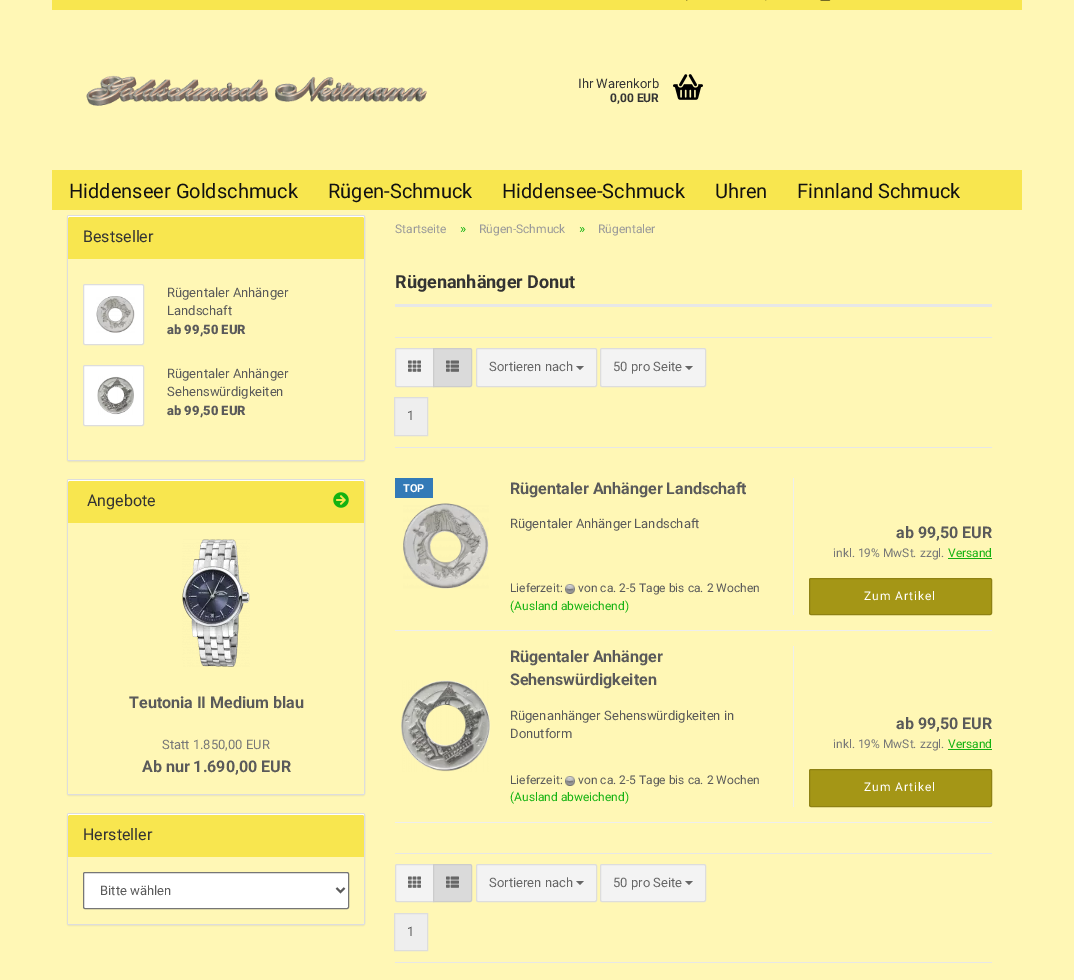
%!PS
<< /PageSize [1074 980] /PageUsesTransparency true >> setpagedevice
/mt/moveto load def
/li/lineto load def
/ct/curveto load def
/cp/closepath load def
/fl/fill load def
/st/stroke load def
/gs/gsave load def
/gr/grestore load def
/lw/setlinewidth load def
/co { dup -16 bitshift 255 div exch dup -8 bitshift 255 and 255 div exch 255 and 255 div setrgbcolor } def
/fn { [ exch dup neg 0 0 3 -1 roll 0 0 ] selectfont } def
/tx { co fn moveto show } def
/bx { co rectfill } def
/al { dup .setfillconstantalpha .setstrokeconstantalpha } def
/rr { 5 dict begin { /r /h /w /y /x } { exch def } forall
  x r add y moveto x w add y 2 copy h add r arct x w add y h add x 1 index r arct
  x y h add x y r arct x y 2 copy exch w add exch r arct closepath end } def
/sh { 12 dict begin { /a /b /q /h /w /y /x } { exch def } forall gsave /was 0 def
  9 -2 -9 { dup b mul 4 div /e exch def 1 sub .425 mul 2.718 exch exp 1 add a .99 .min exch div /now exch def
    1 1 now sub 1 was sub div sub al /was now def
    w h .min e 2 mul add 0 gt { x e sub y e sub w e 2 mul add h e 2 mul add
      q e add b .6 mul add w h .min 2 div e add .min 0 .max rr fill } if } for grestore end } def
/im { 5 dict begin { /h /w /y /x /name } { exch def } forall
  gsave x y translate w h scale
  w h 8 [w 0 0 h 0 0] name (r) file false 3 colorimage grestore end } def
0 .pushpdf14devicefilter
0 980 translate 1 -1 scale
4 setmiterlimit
0 0 1074 980 16#FFF7B5 bx
52 0 970 10 16#F8E64F bx
(media/1.raw) 686 0 2 1 im
(media/2.raw) 765 0 2 1 im
(media/3.raw) 820 0 11 1 im
(media/4.raw) 86 75 341 31 im
(media/5.raw) 673 74 30 26 im
52 170 970 40 16#F8E64F bx
16#000000 co
67 216 298 246 2 .5 .05 sh
16#FFFFFF co
67.5 215.5 297 245 1.5 rr gs fl gr
16#DDDDDD co
st
16#F8E64F co
69 216 mt 363 216 li 363.5 216 364 216.5 364 217 ct 364 259 li 68 259 li 68 217 li 68 216.5 68.5 216 69 216 ct cp fl
16#FFFFFF co
69 217 mt 363 217 li 364 217 364 217 364 218 ct 364 217 364 216 363 216 ct 69 216 li 68 216 li 68 218 li cp fl
16#FFF7B5 co
68 259 mt 364 259 li 364 458 li 364 459 363 460 362 460 ct 70 460 li 69 460 68 459 68 458 ct cp fl
16#FFFFFF co
83.5 284.5 60 60 1.5 rr gs fl gr
16#DDDDDD co
st
(media/6.raw) 96 296 39 37 im
16#FFFFFF co
83.5 365.5 60 60 1.5 rr gs fl gr
16#DDDDDD co
st
(media/7.raw) 97 376 37 39 im
16#000000 co
67 480 298 316 2 .5 .05 sh
16#FFFFFF co
67.5 479.5 297 315 1.5 rr gs fl gr
16#DDDDDD co
st
16#F8E64F co
69 480 mt 363 480 li 363.5 480 364 480.5 364 481 ct 364 523 li 68 523 li 68 481 li 68 480.5 68.5 480 69 480 ct cp fl
16#FFFFFF co
69 481 mt 363 481 li 364 481 364 481 364 482 ct 364 481 364 480 363 480 ct 69 480 li 68 480 li 68 482 li cp fl
(media/8.raw) 333 492 16 16 im
16#FFF7B5 co
68 523 mt 364 523 li 364 792 li 364 793 363 794 362 794 ct 70 794 li 69 794 68 793 68 792 ct cp fl
(media/9.raw) 182 539 68 128 im
16#000000 co
67 814 298 112 2 .5 .05 sh
16#FFFFFF co
67.5 813.5 297 111 1.5 rr gs fl gr
16#DDDDDD co
st
16#F8E64F co
69 814 mt 363 814 li 363.5 814 364 814.5 364 815 ct 364 857 li 68 857 li 68 815 li 68 814.5 68.5 814 69 814 ct cp fl
16#FFFFFF co
69 815 mt 363 815 li 364 815 364 815 364 816 ct 364 815 364 814 363 814 ct 69 814 li 68 814 li 68 816 li cp fl
16#FFF7B5 co
68 857 mt 364 857 li 364 922 li 364 923 363 924 362 924 ct 70 924 li 69 924 68 923 68 922 ct cp fl
16#FFFFFF co
83.5 872.5 265 36 1.5 rr gs fl gr
16#767676 co
st
16#5A5A5A co
2 lw
336.5 888 mt 340.5 892 li 344.5 888 li st
395 304 597 3 16#E7E7E7 bx
395 337 597 1 16#E7E7E7 bx
395 447 597 1 16#E7E7E7 bx
16#F3F3F3 co
397 348.5 mt 433.5 348.5 li 433.5 386.5 li 397 386.5 li 396 386.5 395.5 386 395.5 385 ct 395.5 350 li 395.5 349 396 348.5 397 348.5 ct cp gs fl gr
16#DDDDDD co
1 lw
st
(media/10.raw) 408 360 13 12 im
16#DADADA co
433.5 348.5 mt 470 348.5 li 471 348.5 471.5 349 471.5 350 ct 471.5 385 li 471.5 386 471 386.5 470 386.5 ct 433.5 386.5 li cp gs fl gr
16#CCCCCC co
st
(media/11.raw) 446 360 13 12 im
16#F3F3F3 co
476.5 348.5 120 38 1.5 rr gs fl gr
16#DDDDDD co
st
16#666666 co
576 366 mt 584 366 li 580 370 li cp fl
16#F3F3F3 co
600.5 348.5 105 38 1.5 rr gs fl gr
16#DDDDDD co
st
16#666666 co
685 366 mt 693 366 li 689 370 li cp fl
16#EEEEEE co
394.5 397.5 mt 427.5 397.5 li 427.5 435.5 li 394.5 435.5 li cp gs fl gr
16#DDDDDD co
st
395 630 597 1 16#EEEEEE bx
395 478 38 20 16#337AB7 bx
(media/12.raw) 403 503 86 86 im
(media/13.raw) 565 584 10 10 im
793 478 1 137 16#EEEEEE bx
948 558 44 1 16#14B211 bx
16#A49616 co
809.5 578.5 182 36 1.5 rr gs fl gr
16#8E8113 co
st
395 822 597 1 16#EEEEEE bx
(media/14.raw) 401 680 90 92 im
(media/13.raw) 565 776 10 10 im
793 646 1 161 16#EEEEEE bx
948 749 44 1 16#14B211 bx
16#A49616 co
809.5 769.5 182 37 1.5 rr gs fl gr
16#8E8113 co
st
395 853 597 1 16#E7E7E7 bx
395 962 597 1 16#E7E7E7 bx
16#F3F3F3 co
397 864.5 mt 433.5 864.5 li 433.5 901.5 li 397 901.5 li 396 901.5 395.5 901 395.5 900 ct 395.5 866 li 395.5 865 396 864.5 397 864.5 ct cp gs fl gr
16#DDDDDD co
st
(media/10.raw) 408 876 13 12 im
16#DADADA co
433.5 864.5 mt 470 864.5 li 471 864.5 471.5 865 471.5 866 ct 471.5 900 li 471.5 901 471 901.5 470 901.5 ct 433.5 901.5 li cp gs fl gr
16#CCCCCC co
st
(media/11.raw) 446 876 13 12 im
16#F3F3F3 co
476.5 864.5 120 37 1.5 rr gs fl gr
16#DDDDDD co
st
16#666666 co
576 881 mt 584 881 li 580 885 li cp fl
16#F3F3F3 co
600.5 864.5 105 37 1.5 rr gs fl gr
16#DDDDDD co
st
16#666666 co
685 881 mt 693 881 li 689 885 li cp fl
16#EEEEEE co
394.5 913.5 mt 427.5 913.5 li 427.5 950.5 li 394.5 950.5 li cp gs fl gr
16#DDDDDD co
st
(Ihr Warenkorb) 578 88 /Roboto-Regular 13 16#333333 tx
(0,00 EUR) 610 102 /Roboto-Bold 12 16#333333 tx
(Hiddenseer Goldschmuck) 69 198 /Roboto-Regular 20 16#111111 tx
(Rügen-Schmuck) 328 198 /Roboto-Regular 20 16#111111 tx
(Hiddensee-Schmuck) 502 198 /Roboto-Regular 20 16#111111 tx
(Uhren) 715 198 /Roboto-Regular 20 16#111111 tx
(Finnland Schmuck) 797 198 /Roboto-Regular 20 16#111111 tx
(Bestseller) 83 242 /Roboto-Regular 16 16#333333 tx
(Rügentaler Anhänger) 167 297 /Roboto-Regular 13 16#5A5A5A tx
(Landschaft) 167 315 /Roboto-Regular 13 16#5A5A5A tx
(ab 99,50 EUR) 167 334 /Roboto-Black 13 16#5A5A5A tx
(Rügentaler Anhänger) 167 378 /Roboto-Regular 13 16#5A5A5A tx
(Sehenswürdigkeiten) 167 396 /Roboto-Regular 13 16#5A5A5A tx
(ab 99,50 EUR) 167 415 /Roboto-Black 13 16#5A5A5A tx
(Angebote) 87 506 /Roboto-Regular 16 16#333333 tx
(Teutonia II Medium blau) 129 708 /Roboto-Bold 16 16#5A5A5A tx
(Statt 1.850,00 EUR) 162 749 /Roboto-Regular 13 16#777777 tx
(Ab nur 1.690,00 EUR) 142 772 /Roboto-Bold 16 16#5A5A5A tx
(Hersteller) 83 840 /Roboto-Regular 16 16#333333 tx
(Bitte wählen) 100 895 /Roboto-Regular 13 16#5A5A5A tx
(Startseite) 395 233 /Roboto-Regular 12 16#999999 tx
(») 460 233 /Roboto-Regular 13 16#14B211 tx
(Rügen-Schmuck) 479 233 /Roboto-Regular 12 16#999999 tx
(») 579 233 /Roboto-Regular 13 16#14B211 tx
(Rügentaler) 598 233 /Roboto-Regular 12 16#999999 tx
(Rügenanhänger Donut) 395 288 /Roboto-Bold 18 16#333333 tx
(Sortieren nach) 489 371 /Roboto-Regular 13 16#666666 tx
(50 pro Seite) 613 371 /Roboto-Regular 13 16#666666 tx
(1) 407 420 /Roboto-Regular 13 16#5A5A5A tx
(TOP) 403 492 /Roboto-Bold 11 16#FFFFFF tx
(Rügentaler Anhänger Landschaft) 510 494 /Roboto-Bold 16 16#5A5A5A tx
(Rügentaler Anhänger Landschaft) 510 528 /Roboto-Regular 13 16#5A5A5A tx
(Lieferzeit:) 510 592 /Roboto-Regular 12 16#5A5A5A tx
(von ca. 2-5 Tage bis ca. 2 Wochen) 578 592 /Roboto-Regular 12 16#5A5A5A tx
(\(Ausland abweichend\)) 510 610 /Roboto-Regular 12 16#14B211 tx
(ab 99,50 EUR) 896 538 /Roboto-Bold 16 16#5A5A5A tx
(inkl. 19% MwSt. zzgl.) 833 557 /Roboto-Regular 12 16#777777 tx
(Versand) 948 557 /Roboto-Regular 12 16#14B211 tx
16#FFFFFF co
864 600 mt 1 0 (Zum Artikel) ashow
(Rügentaler Anhänger) 510 662 /Roboto-Bold 16 16#5A5A5A tx
(Sehenswürdigkeiten) 510 685 /Roboto-Bold 16 16#5A5A5A tx
(Rügenanhänger Sehenswürdigkeiten in) 510 720 /Roboto-Regular 13 16#5A5A5A tx
(Donutform) 510 738 /Roboto-Regular 13 16#5A5A5A tx
(Lieferzeit:) 510 784 /Roboto-Regular 12 16#5A5A5A tx
(von ca. 2-5 Tage bis ca. 2 Wochen) 578 784 /Roboto-Regular 12 16#5A5A5A tx
(\(Ausland abweichend\)) 510 801 /Roboto-Regular 12 16#14B211 tx
(ab 99,50 EUR) 896 729 /Roboto-Bold 16 16#5A5A5A tx
(inkl. 19% MwSt. zzgl.) 833 748 /Roboto-Regular 12 16#777777 tx
(Versand) 948 748 /Roboto-Regular 12 16#14B211 tx
16#FFFFFF co
864 791 mt 1 0 (Zum Artikel) ashow
(Sortieren nach) 489 887 /Roboto-Regular 13 16#666666 tx
(50 pro Seite) 613 887 /Roboto-Regular 13 16#666666 tx
(1) 407 936 /Roboto-Regular 13 16#5A5A5A tx
.poppdf14devicefilter showpage
